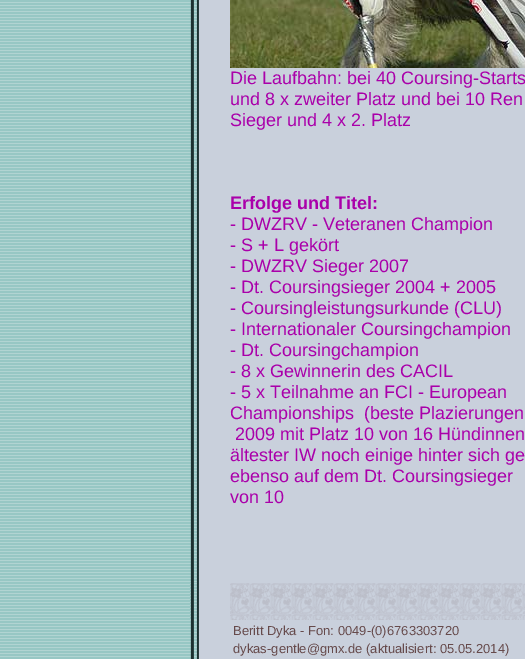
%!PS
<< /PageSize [525 659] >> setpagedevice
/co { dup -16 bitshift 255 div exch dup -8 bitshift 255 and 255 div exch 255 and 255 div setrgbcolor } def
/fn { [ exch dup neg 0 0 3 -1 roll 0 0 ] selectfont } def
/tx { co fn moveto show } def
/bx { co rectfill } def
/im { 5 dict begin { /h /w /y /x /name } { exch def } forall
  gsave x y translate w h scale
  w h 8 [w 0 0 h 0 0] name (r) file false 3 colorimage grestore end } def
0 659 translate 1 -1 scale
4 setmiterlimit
0 0 525 659 16#FFFFFF bx
(media/1.raw) 0 0 190 659 im
(media/2.raw) 190 0 40 583 im
230 68 295 515 16#C9D0DC bx
(media/3.raw) 230 0 295 68 im
(media/4.raw) 190 583 40 37 im
(media/5.raw) 230 583 295 37 im
(media/6.raw) 190 620 40 39 im
230 620 295 39 16#C9D0DC bx
(Die Laufbahn: bei 40 Coursing-Starts) 230 84 /LiberationSans-Regular 18 16#AA00AA tx
(und 8 x zweiter Platz und bei 10 Ren) 230 105 /LiberationSans-Regular 18 16#AA00AA tx
(Sieger und 4 x 2. Platz) 230 126 /LiberationSans-Regular 18 16#AA00AA tx
(Erfolge und Titel:) 230 209 /LiberationSans-Bold 18 16#AA00AA tx
(- DWZRV - Veteranen Champion) 230 230 /LiberationSans-Regular 18 16#AA00AA tx
(- S + L gekört) 230 251 /LiberationSans-Regular 18 16#AA00AA tx
(- DWZRV Sieger 2007) 230 272 /LiberationSans-Regular 18 16#AA00AA tx
(- Dt. Coursingsieger 2004 + 2005) 230 293 /LiberationSans-Regular 18 16#AA00AA tx
(- Coursingleistungsurkunde \(CLU\)) 230 314 /LiberationSans-Regular 18 16#AA00AA tx
(- Internationaler Coursingchampion) 230 335 /LiberationSans-Regular 18 16#AA00AA tx
(- Dt. Coursingchampion) 230 356 /LiberationSans-Regular 18 16#AA00AA tx
(- 8 x Gewinnerin des CACIL) 230 377 /LiberationSans-Regular 18 16#AA00AA tx
(- 5 x Teilnahme an FCI - European) 230 398 /LiberationSans-Regular 18 16#AA00AA tx
(Championships  \(beste Plazierungen) 230 419 /LiberationSans-Regular 18 16#AA00AA tx
(2009 mit Platz 10 von 16 Hündinnen) 235 440 /LiberationSans-Regular 18 16#AA00AA tx
(ältester IW noch einige hinter sich ge) 230 461 /LiberationSans-Regular 18 16#AA00AA tx
(ebenso auf dem Dt. Coursingsieger) 230 482 /LiberationSans-Regular 18 16#AA00AA tx
(von 10) 230 503 /LiberationSans-Regular 18 16#AA00AA tx
(Beritt Dyka - Fon: 0049-\(0\)6763303720) 233 635 /LiberationSans-Regular 13 16#664A4B tx
(dykas-gentle@gmx.de \(aktualisiert: 05.05.2014\)) 233 653 /LiberationSans-Regular 13 16#664A4B tx
showpage
